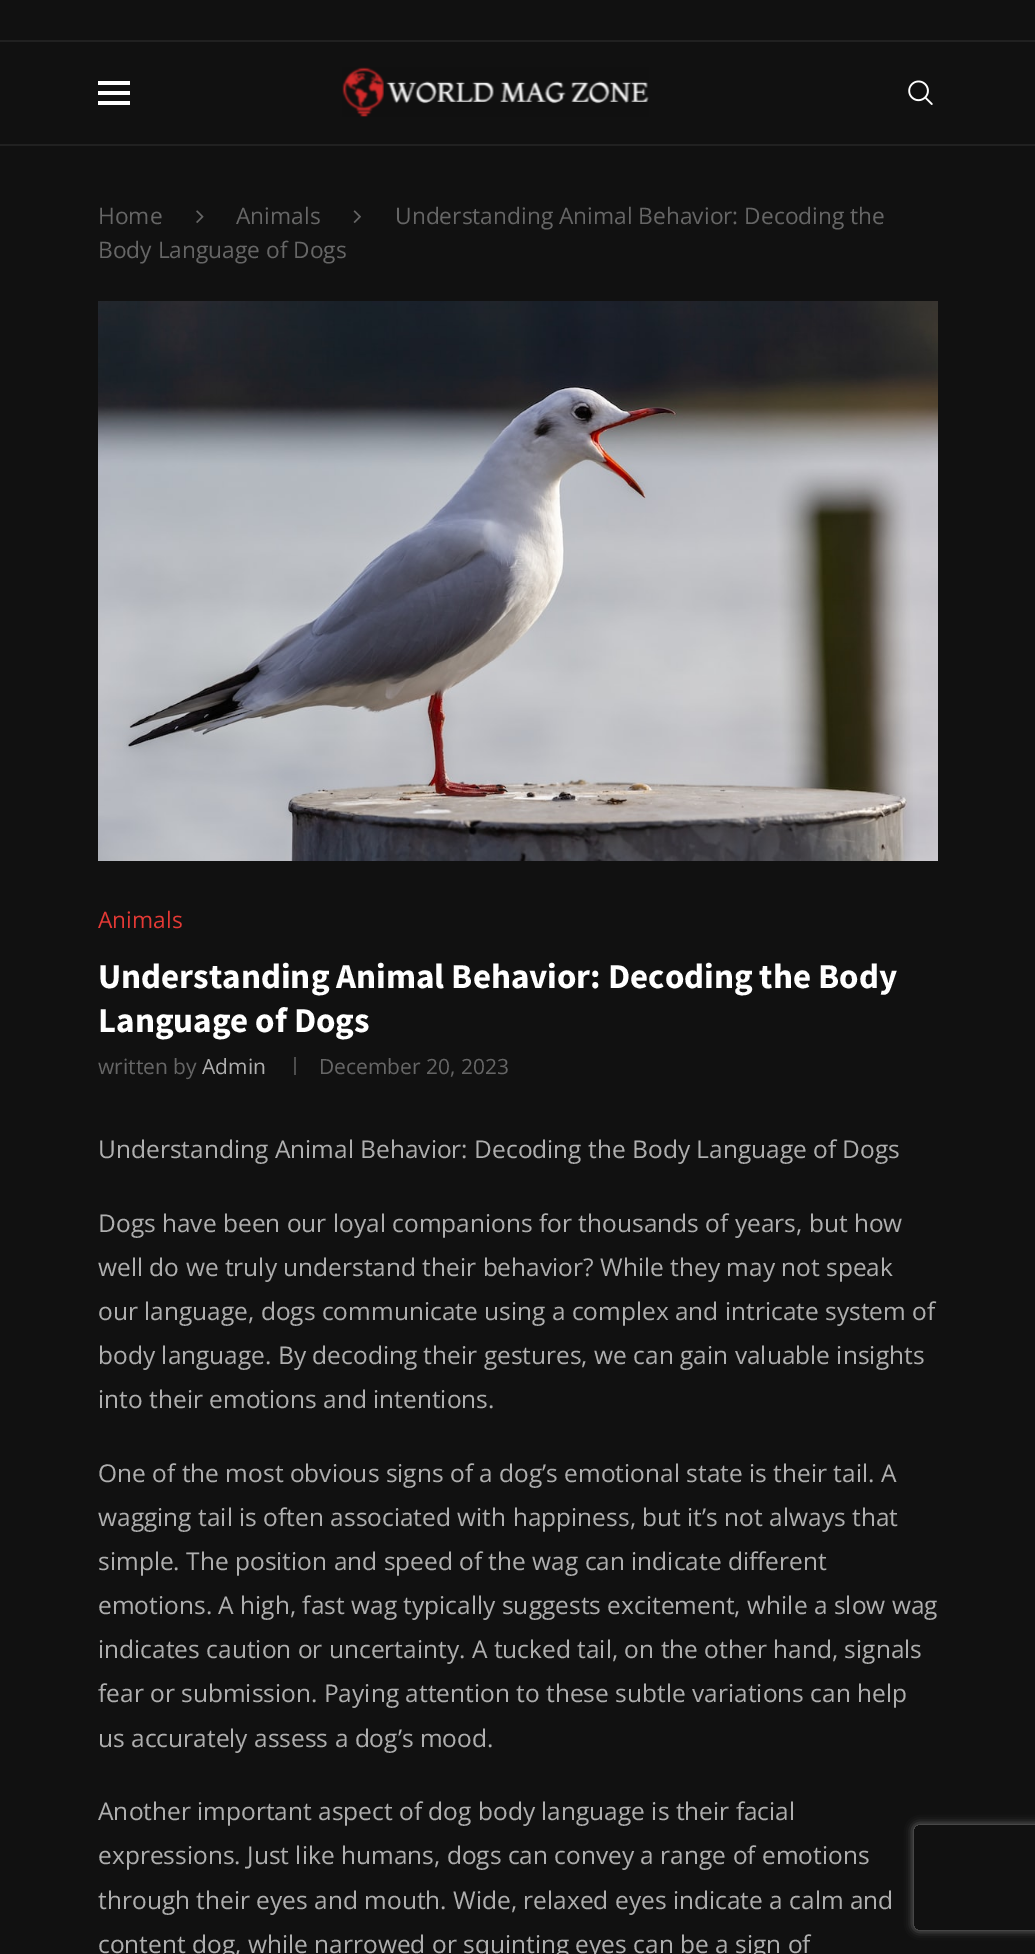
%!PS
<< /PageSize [1035 1954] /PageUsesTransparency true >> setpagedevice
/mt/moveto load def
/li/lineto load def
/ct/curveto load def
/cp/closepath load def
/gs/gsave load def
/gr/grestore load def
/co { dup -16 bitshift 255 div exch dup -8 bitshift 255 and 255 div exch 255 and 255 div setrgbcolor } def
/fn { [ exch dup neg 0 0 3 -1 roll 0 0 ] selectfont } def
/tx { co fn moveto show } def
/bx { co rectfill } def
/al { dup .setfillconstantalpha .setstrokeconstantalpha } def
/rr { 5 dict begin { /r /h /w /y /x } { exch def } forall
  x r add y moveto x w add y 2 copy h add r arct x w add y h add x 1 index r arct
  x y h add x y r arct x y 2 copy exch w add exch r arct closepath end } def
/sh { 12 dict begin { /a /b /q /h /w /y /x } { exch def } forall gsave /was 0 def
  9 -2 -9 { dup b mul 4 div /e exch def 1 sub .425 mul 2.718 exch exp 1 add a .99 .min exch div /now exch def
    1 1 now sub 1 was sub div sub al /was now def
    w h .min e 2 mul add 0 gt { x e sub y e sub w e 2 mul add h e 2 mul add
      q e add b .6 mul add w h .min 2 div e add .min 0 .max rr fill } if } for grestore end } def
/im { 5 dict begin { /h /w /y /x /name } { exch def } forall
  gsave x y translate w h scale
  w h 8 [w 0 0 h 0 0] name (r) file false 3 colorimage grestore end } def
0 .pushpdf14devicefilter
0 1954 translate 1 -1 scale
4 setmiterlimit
0 0 1035 1954 16#111111 bx
0 40 1035 2 16#212121 bx
0 144 1035 2 16#212121 bx
98 81 32 4 16#FFFFFF bx
98 91 32 4 16#FFFFFF bx
98 101 32 4 16#FFFFFF bx
(media/1.raw) 342 67 307 50 im
(media/2.raw) 908 80 25 25 im
(media/3.raw) 196 210 8 13 im
(media/4.raw) 353 210 8 13 im
(media/5.raw) 98 301 840 560 im
294 1057 2 18 16#4D4D4D bx
gs
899 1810 mt 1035 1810 li 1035 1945 li 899 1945 li cp 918 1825 mt 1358 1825 li 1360 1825 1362 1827 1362 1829 ct 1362 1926 li 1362 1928 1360 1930 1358 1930 ct 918 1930 li 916 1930 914 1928 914 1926 ct 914 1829 li 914 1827 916 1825 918 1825 ct cp eoclip newpath
16#808080 co
914 1825 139 105 4 4.5 1 sh
gr
(Home) 98 224 /OpenSans-Regular 22.75 16#666666 tx
(Animals) 236 224 /OpenSans-Regular 22.75 16#666666 tx
(Understanding Animal Behavior: Decoding the) 395 224 /OpenSans-Regular 22.75 16#666666 tx
(Body Language of Dogs) 98 258 /OpenSans-Regular 22.75 16#666666 tx
(Animals) 98 928 /OpenSans-Regular 22.75 16#E53935 tx
(Understanding Animal Behavior: Decoding the Body) 98 988 /SourceSansPro-Bold 35 16#FFFFFF tx
(Language of Dogs) 98 1032 /SourceSansPro-Bold 35 16#FFFFFF tx
(written by) 98 1074 /OpenSans-Regular 21 16#666666 tx
(Admin) 202 1074 /OpenSans-Regular 21 16#AFAFAF tx
(December 20, 2023) 319 1074 /OpenSans-Regular 21 16#666666 tx
(Understanding Animal Behavior: Decoding the Body Language of Dogs) 98 1158 /OpenSans-Regular 24.5 16#AFAFAF tx
(Dogs have been our loyal companions for thousands of years, but how) 98 1232 /OpenSans-Regular 24.5 16#AFAFAF tx
(well do we truly understand their behavior? While they may not speak) 98 1276 /OpenSans-Regular 24.5 16#AFAFAF tx
(our language, dogs communicate using a complex and intricate system of) 98 1320 /OpenSans-Regular 24.5 16#AFAFAF tx
(body language. By decoding their gestures, we can gain valuable insights) 98 1364 /OpenSans-Regular 24.5 16#AFAFAF tx
(into their emotions and intentions.) 98 1408 /OpenSans-Regular 24.5 16#AFAFAF tx
(One of the most obvious signs of a dog’s emotional state is their tail. A) 98 1482 /OpenSans-Regular 24.5 16#AFAFAF tx
(wagging tail is often associated with happiness, but it’s not always that) 98 1526 /OpenSans-Regular 24.5 16#AFAFAF tx
(simple. The position and speed of the wag can indicate different) 98 1570 /OpenSans-Regular 24.5 16#AFAFAF tx
(emotions. A high, fast wag typically suggests excitement, while a slow wag) 98 1614 /OpenSans-Regular 24.5 16#AFAFAF tx
(indicates caution or uncertainty. A tucked tail, on the other hand, signals) 98 1658 /OpenSans-Regular 24.5 16#AFAFAF tx
(fear or submission. Paying attention to these subtle variations can help) 98 1702 /OpenSans-Regular 24.5 16#AFAFAF tx
(us accurately assess a dog’s mood.) 98 1747 /OpenSans-Regular 24.5 16#AFAFAF tx
(Another important aspect of dog body language is their facial) 98 1820 /OpenSans-Regular 24.5 16#AFAFAF tx
(expressions. Just like humans, dogs can convey a range of emotions) 98 1864 /OpenSans-Regular 24.5 16#AFAFAF tx
(through their eyes and mouth. Wide, relaxed eyes indicate a calm and) 98 1909 /OpenSans-Regular 24.5 16#AFAFAF tx
(content dog, while narrowed or squinting eyes can be a sign of) 98 1953 /OpenSans-Regular 24.5 16#AFAFAF tx
.poppdf14devicefilter showpage
